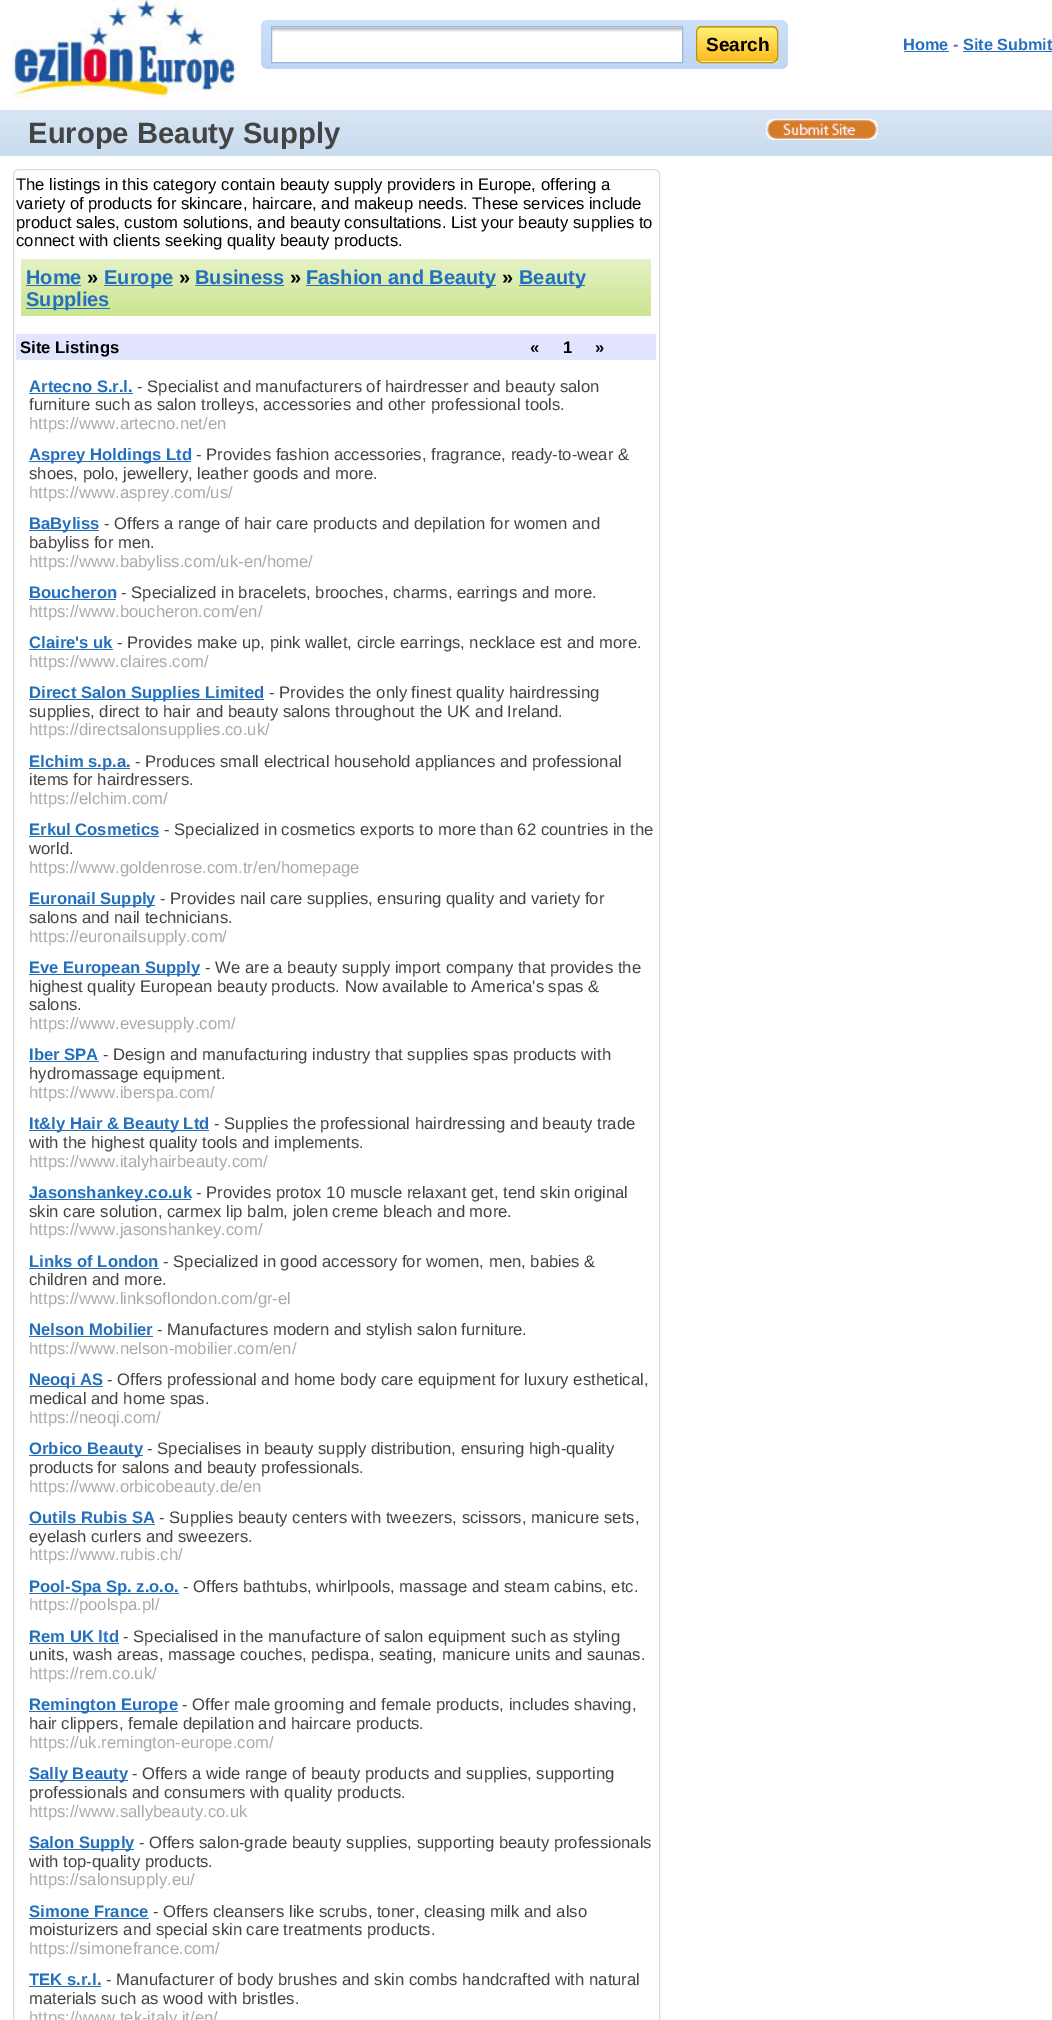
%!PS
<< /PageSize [1052 2020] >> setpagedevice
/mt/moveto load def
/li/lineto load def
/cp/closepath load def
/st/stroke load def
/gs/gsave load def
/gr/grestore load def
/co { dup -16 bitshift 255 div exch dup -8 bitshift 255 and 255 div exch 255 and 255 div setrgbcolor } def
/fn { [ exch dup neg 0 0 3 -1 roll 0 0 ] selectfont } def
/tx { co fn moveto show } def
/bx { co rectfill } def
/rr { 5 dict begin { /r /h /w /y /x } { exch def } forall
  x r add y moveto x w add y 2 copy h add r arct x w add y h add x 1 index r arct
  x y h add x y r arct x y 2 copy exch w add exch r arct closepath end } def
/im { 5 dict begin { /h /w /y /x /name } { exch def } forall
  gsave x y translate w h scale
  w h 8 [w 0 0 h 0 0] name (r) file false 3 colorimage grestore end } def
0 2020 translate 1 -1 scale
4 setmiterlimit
0 0 1052 2020 16#FFFFFF bx
(media/1.raw) 12 0 225 98 im
gs 261 20 527 49 8 rr clip newpath
<< /ShadingType 2 /ColorSpace /DeviceRGB /Coords [524 20 524 69] /Extend [true true] /Function << /FunctionType 2 /Domain [0 1] /C0 [.804 .878 .976] /C1 [.749 .835 .953] /N 1 >> >> shfill gr
272 27 410 35 16#FFFFFF bx
(media/2.raw) 272 27 410 5 im
16#98B7E0 co
271.5 26.5 411 36 rectstroke
gs
696 26 82 37 6 rr clip newpath
gs 696 26 mt 778 26 li 778 28 li 696 28 li cp clip newpath
<< /ShadingType 2 /ColorSpace /DeviceRGB /Coords [737 -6.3 737 28] /Extend [true true] /Function << /FunctionType 2 /Domain [0 1] /C0 [.996 .953 .471] /C1 [1 .729 .125] /N 1 >> >> shfill gr
gs 696 28 mt 778 28 li 778 61 li 696 61 li cp clip newpath
<< /ShadingType 2 /ColorSpace /DeviceRGB /Coords [737 27 737 61] /Extend [true true] /Function << /FunctionType 2 /Domain [0 1] /C0 [.996 .953 .471] /C1 [1 .729 .125] /N 1 >> >> shfill gr
gs 696 61 mt 778 61 li 778 63 li 696 63 li cp clip newpath
<< /ShadingType 2 /ColorSpace /DeviceRGB /Coords [737 61 737 95] /Extend [true true] /Function << /FunctionType 2 /Domain [0 1] /C0 [.996 .953 .471] /C1 [1 .729 .125] /N 1 >> >> shfill gr
gr
16#BA9515 co
696.5 26.5 81 36 5.5 rr st
904 51 45 1 16#2470BD bx
963 51 89 1 16#2470BD bx
gs 0 110 mt 1052 110 li 1052 156 li 0 156 li cp clip newpath
<< /ShadingType 2 /ColorSpace /DeviceRGB /Coords [526 110 526 156] /Extend [true true] /Function << /FunctionType 2 /Domain [0 1] /C0 [.851 .898 .957] /C1 [.78 .863 .929] /N 1 >> >> shfill gr
(media/3.raw) 766 118 112 22 im
16#DDDDDD co
13.5 169.5 646 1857 5.5 rr st
gs 21 259 mt 651 259 li 651 316 li 21 316 li cp clip newpath
<< /ShadingType 2 /ColorSpace /DeviceRGB /Coords [336 259 336 316] /Extend [true true] /Function << /FunctionType 2 /Domain [0 1] /C0 [.898 .949 .776] /C1 [.796 .898 .557] /N 1 >> >> shfill gr
26 285 55 1 16#2470BD bx
104 285 69 1 16#2470BD bx
195 285 89 1 16#2470BD bx
306 285 190 1 16#2470BD bx
519 285 66 1 16#2470BD bx
26 308 84 1 16#2470BD bx
16 334 640 26 16#E3E4FF bx
29 393 104 1 16#2470BD bx
29 461 162 1 16#2470BD bx
29 530 70 1 16#2470BD bx
29 599 87 1 16#2470BD bx
29 649 84 1 16#2470BD bx
29 699 235 1 16#2470BD bx
29 768 101 1 16#2470BD bx
29 836 130 1 16#2470BD bx
29 905 126 1 16#2470BD bx
29 974 171 1 16#2470BD bx
29 1061 70 1 16#2470BD bx
29 1130 180 1 16#2470BD bx
29 1199 162 1 16#2470BD bx
29 1268 130 1 16#2470BD bx
29 1336 124 1 16#2470BD bx
29 1386 74 1 16#2470BD bx
29 1455 114 1 16#2470BD bx
29 1524 126 1 16#2470BD bx
29 1593 150 1 16#2470BD bx
29 1643 90 1 16#2470BD bx
29 1711 149 1 16#2470BD bx
29 1780 99 1 16#2470BD bx
29 1849 105 1 16#2470BD bx
29 1918 120 1 16#2470BD bx
29 1986 72 1 16#2470BD bx
(Search) 706 51 /LiberationSans-Bold 19 16#000000 tx
(Home) 903 50 /LiberationSans-Bold 16.25 16#2470BD tx
(-) 953 50 /LiberationSans-Bold 16.25 16#5868D0 tx
(Site Submit) 963 50 /LiberationSans-Bold 16.25 16#2470BD tx
(Europe Beauty Supply) 28 143 /LiberationSans-Bold 29.25 16#444444 tx
(The listings in this category contain beauty supply providers in Europe, offering a) 16 190 /LiberationSans-Regular 16.65 16#000000 tx
(variety of products for skincare, haircare, and makeup needs. These services include) 16 209 /LiberationSans-Regular 16.65 16#000000 tx
(product sales, custom solutions, and beauty consultations. List your beauty supplies to) 16 228 /LiberationSans-Regular 16.65 16#000000 tx
(connect with clients seeking quality beauty products.) 16 246 /LiberationSans-Regular 16.65 16#000000 tx
(Home) 26 284 /LiberationSans-Bold 20 16#2470BD tx
(») 87 284 /LiberationSans-Bold 20 16#000000 tx
(Europe) 104 284 /LiberationSans-Bold 20 16#2470BD tx
(») 179 284 /LiberationSans-Bold 20 16#000000 tx
(Business) 195 284 /LiberationSans-Bold 20 16#2470BD tx
(») 290 284 /LiberationSans-Bold 20 16#000000 tx
(Fashion and Beauty) 306 284 /LiberationSans-Bold 20 16#2470BD tx
(») 502 284 /LiberationSans-Bold 20 16#000000 tx
(Beauty) 519 284 /LiberationSans-Bold 20 16#2470BD tx
(Supplies) 26 306 /LiberationSans-Bold 20 16#2470BD tx
(Site Listings) 20 353 /LiberationSans-Bold 16.65 16#000000 tx
(«) 530 353 /LiberationSans-Bold 16.65 16#000000 tx
(1) 563 353 /LiberationSans-Bold 16.65 16#000000 tx
(») 595 353 /LiberationSans-Bold 16.65 16#000000 tx
(Artecno S.r.l.) 29 392 /LiberationSans-Bold 16.65 16#2470BD tx
(- Specialist and manufacturers of hairdresser and beauty salon) 137 392 /LiberationSans-Regular 16.65 16#444444 tx
(furniture such as salon trolleys, accessories and other professional tools.) 29 410 /LiberationSans-Regular 16.65 16#444444 tx
(https://www.artecno.net/en) 29 429 /LiberationSans-Regular 16.65 16#AAAAAA tx
(Asprey Holdings Ltd) 29 460 /LiberationSans-Bold 16.65 16#2470BD tx
(- Provides fashion accessories, fragrance, ready-to-wear &) 196 460 /LiberationSans-Regular 16.65 16#444444 tx
(shoes, polo, jewellery, leather goods and more.) 29 479 /LiberationSans-Regular 16.65 16#444444 tx
(https://www.asprey.com/us/) 29 498 /LiberationSans-Regular 16.65 16#AAAAAA tx
(BaByliss) 29 529 /LiberationSans-Bold 16.65 16#2470BD tx
(- Offers a range of hair care products and depilation for women and) 104 529 /LiberationSans-Regular 16.65 16#444444 tx
(babyliss for men.) 29 548 /LiberationSans-Regular 16.65 16#444444 tx
(https://www.babyliss.com/uk-en/home/) 29 567 /LiberationSans-Regular 16.65 16#AAAAAA tx
(Boucheron) 29 598 /LiberationSans-Bold 16.65 16#2470BD tx
(- Specialized in bracelets, brooches, charms, earrings and more.) 121 598 /LiberationSans-Regular 16.65 16#444444 tx
(https://www.boucheron.com/en/) 29 617 /LiberationSans-Regular 16.65 16#AAAAAA tx
(Claire's uk) 29 648 /LiberationSans-Bold 16.65 16#2470BD tx
(- Provides make up, pink wallet, circle earrings, necklace est and more.) 117 648 /LiberationSans-Regular 16.65 16#444444 tx
(https://www.claires.com/) 29 667 /LiberationSans-Regular 16.65 16#AAAAAA tx
(Direct Salon Supplies Limited) 29 698 /LiberationSans-Bold 16.65 16#2470BD tx
(- Provides the only finest quality hairdressing) 269 698 /LiberationSans-Regular 16.65 16#444444 tx
(supplies, direct to hair and beauty salons throughout the UK and Ireland.) 29 717 /LiberationSans-Regular 16.65 16#444444 tx
(https://directsalonsupplies.co.uk/) 29 735 /LiberationSans-Regular 16.65 16#AAAAAA tx
(Elchim s.p.a.) 29 767 /LiberationSans-Bold 16.65 16#2470BD tx
(- Produces small electrical household appliances and professional) 135 767 /LiberationSans-Regular 16.65 16#444444 tx
(items for hairdressers.) 29 785 /LiberationSans-Regular 16.65 16#444444 tx
(https://elchim.com/) 29 804 /LiberationSans-Regular 16.65 16#AAAAAA tx
(Erkul Cosmetics) 29 835 /LiberationSans-Bold 16.65 16#2470BD tx
(- Specialized in cosmetics exports to more than 62 countries in the) 164 835 /LiberationSans-Regular 16.65 16#444444 tx
(world.) 29 854 /LiberationSans-Regular 16.65 16#444444 tx
(https://www.goldenrose.com.tr/en/homepage) 29 873 /LiberationSans-Regular 16.65 16#AAAAAA tx
(Euronail Supply) 29 904 /LiberationSans-Bold 16.65 16#2470BD tx
(- Provides nail care supplies, ensuring quality and variety for) 160 904 /LiberationSans-Regular 16.65 16#444444 tx
(salons and nail technicians.) 29 923 /LiberationSans-Regular 16.65 16#444444 tx
(https://euronailsupply.com/) 29 942 /LiberationSans-Regular 16.65 16#AAAAAA tx
(Eve European Supply) 29 973 /LiberationSans-Bold 16.65 16#2470BD tx
(- We are a beauty supply import company that provides the) 205 973 /LiberationSans-Regular 16.65 16#444444 tx
(highest quality European beauty products. Now available to America's spas &) 29 992 /LiberationSans-Regular 16.65 16#444444 tx
(salons.) 29 1010 /LiberationSans-Regular 16.65 16#444444 tx
(https://www.evesupply.com/) 29 1029 /LiberationSans-Regular 16.65 16#AAAAAA tx
(Iber SPA) 29 1060 /LiberationSans-Bold 16.65 16#2470BD tx
(- Design and manufacturing industry that supplies spas products with) 103 1060 /LiberationSans-Regular 16.65 16#444444 tx
(hydromassage equipment.) 29 1079 /LiberationSans-Regular 16.65 16#444444 tx
(https://www.iberspa.com/) 29 1098 /LiberationSans-Regular 16.65 16#AAAAAA tx
(It&ly Hair & Beauty Ltd) 29 1129 /LiberationSans-Bold 16.65 16#2470BD tx
(- Supplies the professional hairdressing and beauty trade) 214 1129 /LiberationSans-Regular 16.65 16#444444 tx
(with the highest quality tools and implements.) 29 1148 /LiberationSans-Regular 16.65 16#444444 tx
(https://www.italyhairbeauty.com/) 29 1167 /LiberationSans-Regular 16.65 16#AAAAAA tx
(Jasonshankey.co.uk) 29 1198 /LiberationSans-Bold 16.65 16#2470BD tx
(- Provides protox 10 muscle relaxant get, tend skin original) 196 1198 /LiberationSans-Regular 16.65 16#444444 tx
(skin care solution, carmex lip balm, jolen creme bleach and more.) 29 1217 /LiberationSans-Regular 16.65 16#444444 tx
(https://www.jasonshankey.com/) 29 1235 /LiberationSans-Regular 16.65 16#AAAAAA tx
(Links of London) 29 1267 /LiberationSans-Bold 16.65 16#2470BD tx
(- Specialized in good accessory for women, men, babies &) 163 1267 /LiberationSans-Regular 16.65 16#444444 tx
(children and more.) 29 1285 /LiberationSans-Regular 16.65 16#444444 tx
(https://www.linksoflondon.com/gr-el) 29 1304 /LiberationSans-Regular 16.65 16#AAAAAA tx
(Nelson Mobilier) 29 1335 /LiberationSans-Bold 16.65 16#2470BD tx
(- Manufactures modern and stylish salon furniture.) 157 1335 /LiberationSans-Regular 16.65 16#444444 tx
(https://www.nelson-mobilier.com/en/) 29 1354 /LiberationSans-Regular 16.65 16#AAAAAA tx
(Neoqi AS) 29 1385 /LiberationSans-Bold 16.65 16#2470BD tx
(- Offers professional and home body care equipment for luxury esthetical,) 107 1385 /LiberationSans-Regular 16.65 16#444444 tx
(medical and home spas.) 29 1404 /LiberationSans-Regular 16.65 16#444444 tx
(https://neoqi.com/) 29 1423 /LiberationSans-Regular 16.65 16#AAAAAA tx
(Orbico Beauty) 29 1454 /LiberationSans-Bold 16.65 16#2470BD tx
(- Specialises in beauty supply distribution, ensuring high-quality) 147 1454 /LiberationSans-Regular 16.65 16#444444 tx
(products for salons and beauty professionals.) 29 1473 /LiberationSans-Regular 16.65 16#444444 tx
(https://www.orbicobeauty.de/en) 29 1492 /LiberationSans-Regular 16.65 16#AAAAAA tx
(Outils Rubis SA) 29 1523 /LiberationSans-Bold 16.65 16#2470BD tx
(- Supplies beauty centers with tweezers, scissors, manicure sets,) 159 1523 /LiberationSans-Regular 16.65 16#444444 tx
(eyelash curlers and sweezers.) 29 1542 /LiberationSans-Regular 16.65 16#444444 tx
(https://www.rubis.ch/) 29 1560 /LiberationSans-Regular 16.65 16#AAAAAA tx
(Pool-Spa Sp. z.o.o.) 29 1592 /LiberationSans-Bold 16.65 16#2470BD tx
(- Offers bathtubs, whirlpools, massage and steam cabins, etc.) 183 1592 /LiberationSans-Regular 16.65 16#444444 tx
(https://poolspa.pl/) 29 1610 /LiberationSans-Regular 16.65 16#AAAAAA tx
(Rem UK ltd) 29 1642 /LiberationSans-Bold 16.65 16#2470BD tx
(- Specialised in the manufacture of salon equipment such as styling) 123 1642 /LiberationSans-Regular 16.65 16#444444 tx
(units, wash areas, massage couches, pedispa, seating, manicure units and saunas.) 29 1660 /LiberationSans-Regular 16.65 16#444444 tx
(https://rem.co.uk/) 29 1679 /LiberationSans-Regular 16.65 16#AAAAAA tx
(Remington Europe) 29 1710 /LiberationSans-Bold 16.65 16#2470BD tx
(- Offer male grooming and female products, includes shaving,) 182 1710 /LiberationSans-Regular 16.65 16#444444 tx
(hair clippers, female depilation and haircare products.) 29 1729 /LiberationSans-Regular 16.65 16#444444 tx
(https://uk.remington-europe.com/) 29 1748 /LiberationSans-Regular 16.65 16#AAAAAA tx
(Sally Beauty) 29 1779 /LiberationSans-Bold 16.65 16#2470BD tx
(- Offers a wide range of beauty products and supplies, supporting) 132 1779 /LiberationSans-Regular 16.65 16#444444 tx
(professionals and consumers with quality products.) 29 1798 /LiberationSans-Regular 16.65 16#444444 tx
(https://www.sallybeauty.co.uk) 29 1817 /LiberationSans-Regular 16.65 16#AAAAAA tx
(Salon Supply) 29 1848 /LiberationSans-Bold 16.65 16#2470BD tx
(- Offers salon-grade beauty supplies, supporting beauty professionals) 139 1848 /LiberationSans-Regular 16.65 16#444444 tx
(with top-quality products.) 29 1867 /LiberationSans-Regular 16.65 16#444444 tx
(https://salonsupply.eu/) 29 1885 /LiberationSans-Regular 16.65 16#AAAAAA tx
(Simone France) 29 1917 /LiberationSans-Bold 16.65 16#2470BD tx
(- Offers cleansers like scrubs, toner, cleasing milk and also) 153 1917 /LiberationSans-Regular 16.65 16#444444 tx
(moisturizers and special skin care treatments products.) 29 1935 /LiberationSans-Regular 16.65 16#444444 tx
(https://simonefrance.com/) 29 1954 /LiberationSans-Regular 16.65 16#AAAAAA tx
(TEK s.r.l.) 29 1985 /LiberationSans-Bold 16.65 16#2470BD tx
(- Manufacturer of body brushes and skin combs handcrafted with natural) 106 1985 /LiberationSans-Regular 16.65 16#444444 tx
(materials such as wood with bristles.) 29 2004 /LiberationSans-Regular 16.65 16#444444 tx
(https://www.tek-italy.it/en/) 29 2023 /LiberationSans-Regular 16.65 16#AAAAAA tx
showpage
